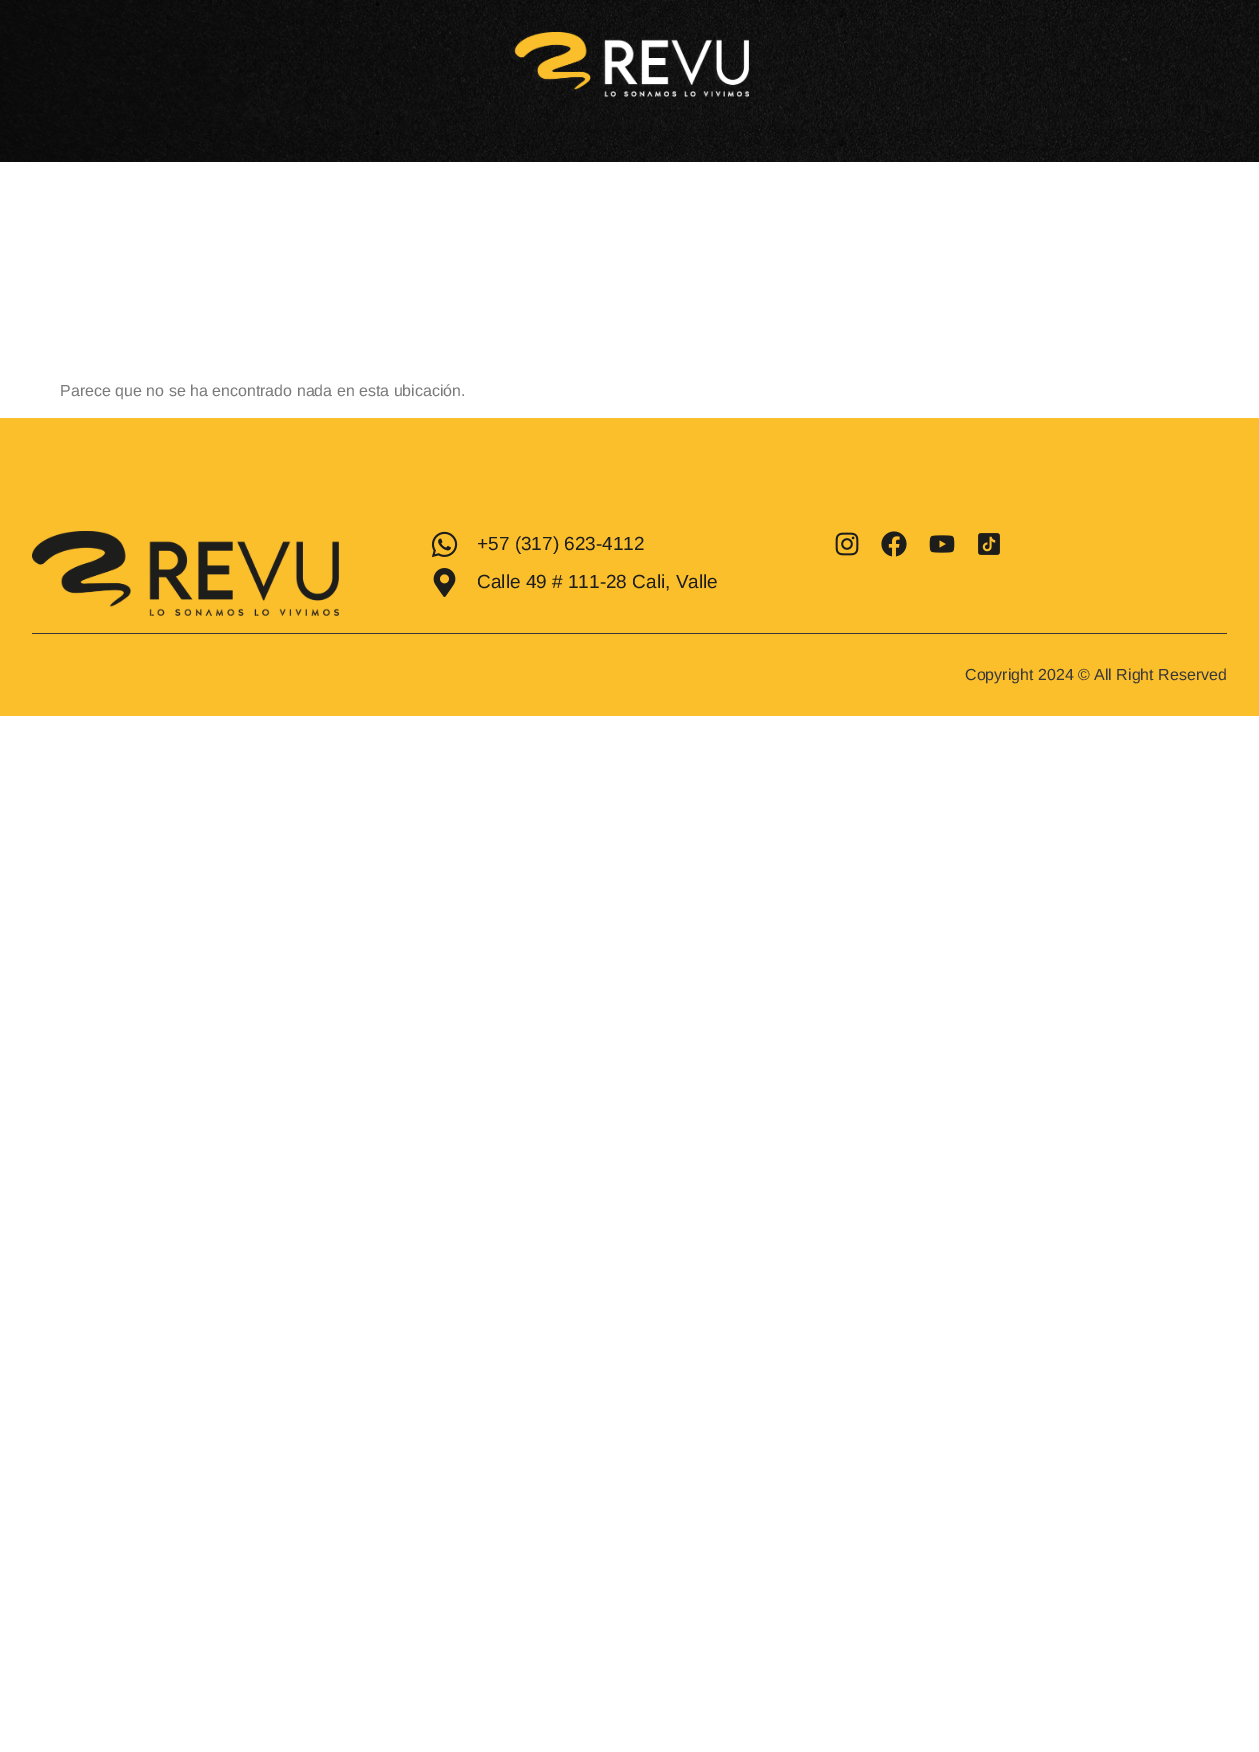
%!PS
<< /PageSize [1259 1752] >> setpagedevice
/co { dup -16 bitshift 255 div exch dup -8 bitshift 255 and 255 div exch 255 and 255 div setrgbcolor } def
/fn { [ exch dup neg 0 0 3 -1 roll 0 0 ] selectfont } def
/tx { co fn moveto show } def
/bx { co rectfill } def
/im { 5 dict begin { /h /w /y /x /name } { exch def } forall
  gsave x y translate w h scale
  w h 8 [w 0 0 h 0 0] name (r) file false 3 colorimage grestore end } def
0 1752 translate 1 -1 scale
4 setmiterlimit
0 0 1259 1752 16#FFFFFF bx
0 0 1259 162 16#050505 bx
(media/1.raw) 0 0 1259 129 im
(media/2.raw) 510 32 239 65 im
(media/3.raw) 0 129 1259 33 im
0 418 1259 298 16#FCBF2C bx
(media/4.raw) 32 531 307 85 im
(media/5.raw) 431 531 27 27 im
(media/6.raw) 433 568 23 29 im
(media/7.raw) 835 532 24 24 im
(media/8.raw) 881 531 26 26 im
(media/9.raw) 929 535 26 18 im
(media/10.raw) 978 533 22 22 im
32 633 1195 1 16#383838 bx
(Parece que no se ha encontrado nada en esta ubicación.) 60 396 /LiberationSans-Regular 16 16#7A7A7A tx
(+57 \(317\) 623-4112) 477 550 /LiberationSans-Regular 19 16#1D1D1B tx
(Calle 49 # 111-28 Cali, Valle) 477 588 /LiberationSans-Regular 19 16#1D1D1B tx
(Copyright 2024 © All Right Reserved) 965 680 /LiberationSans-Regular 16 16#383838 tx
showpage
